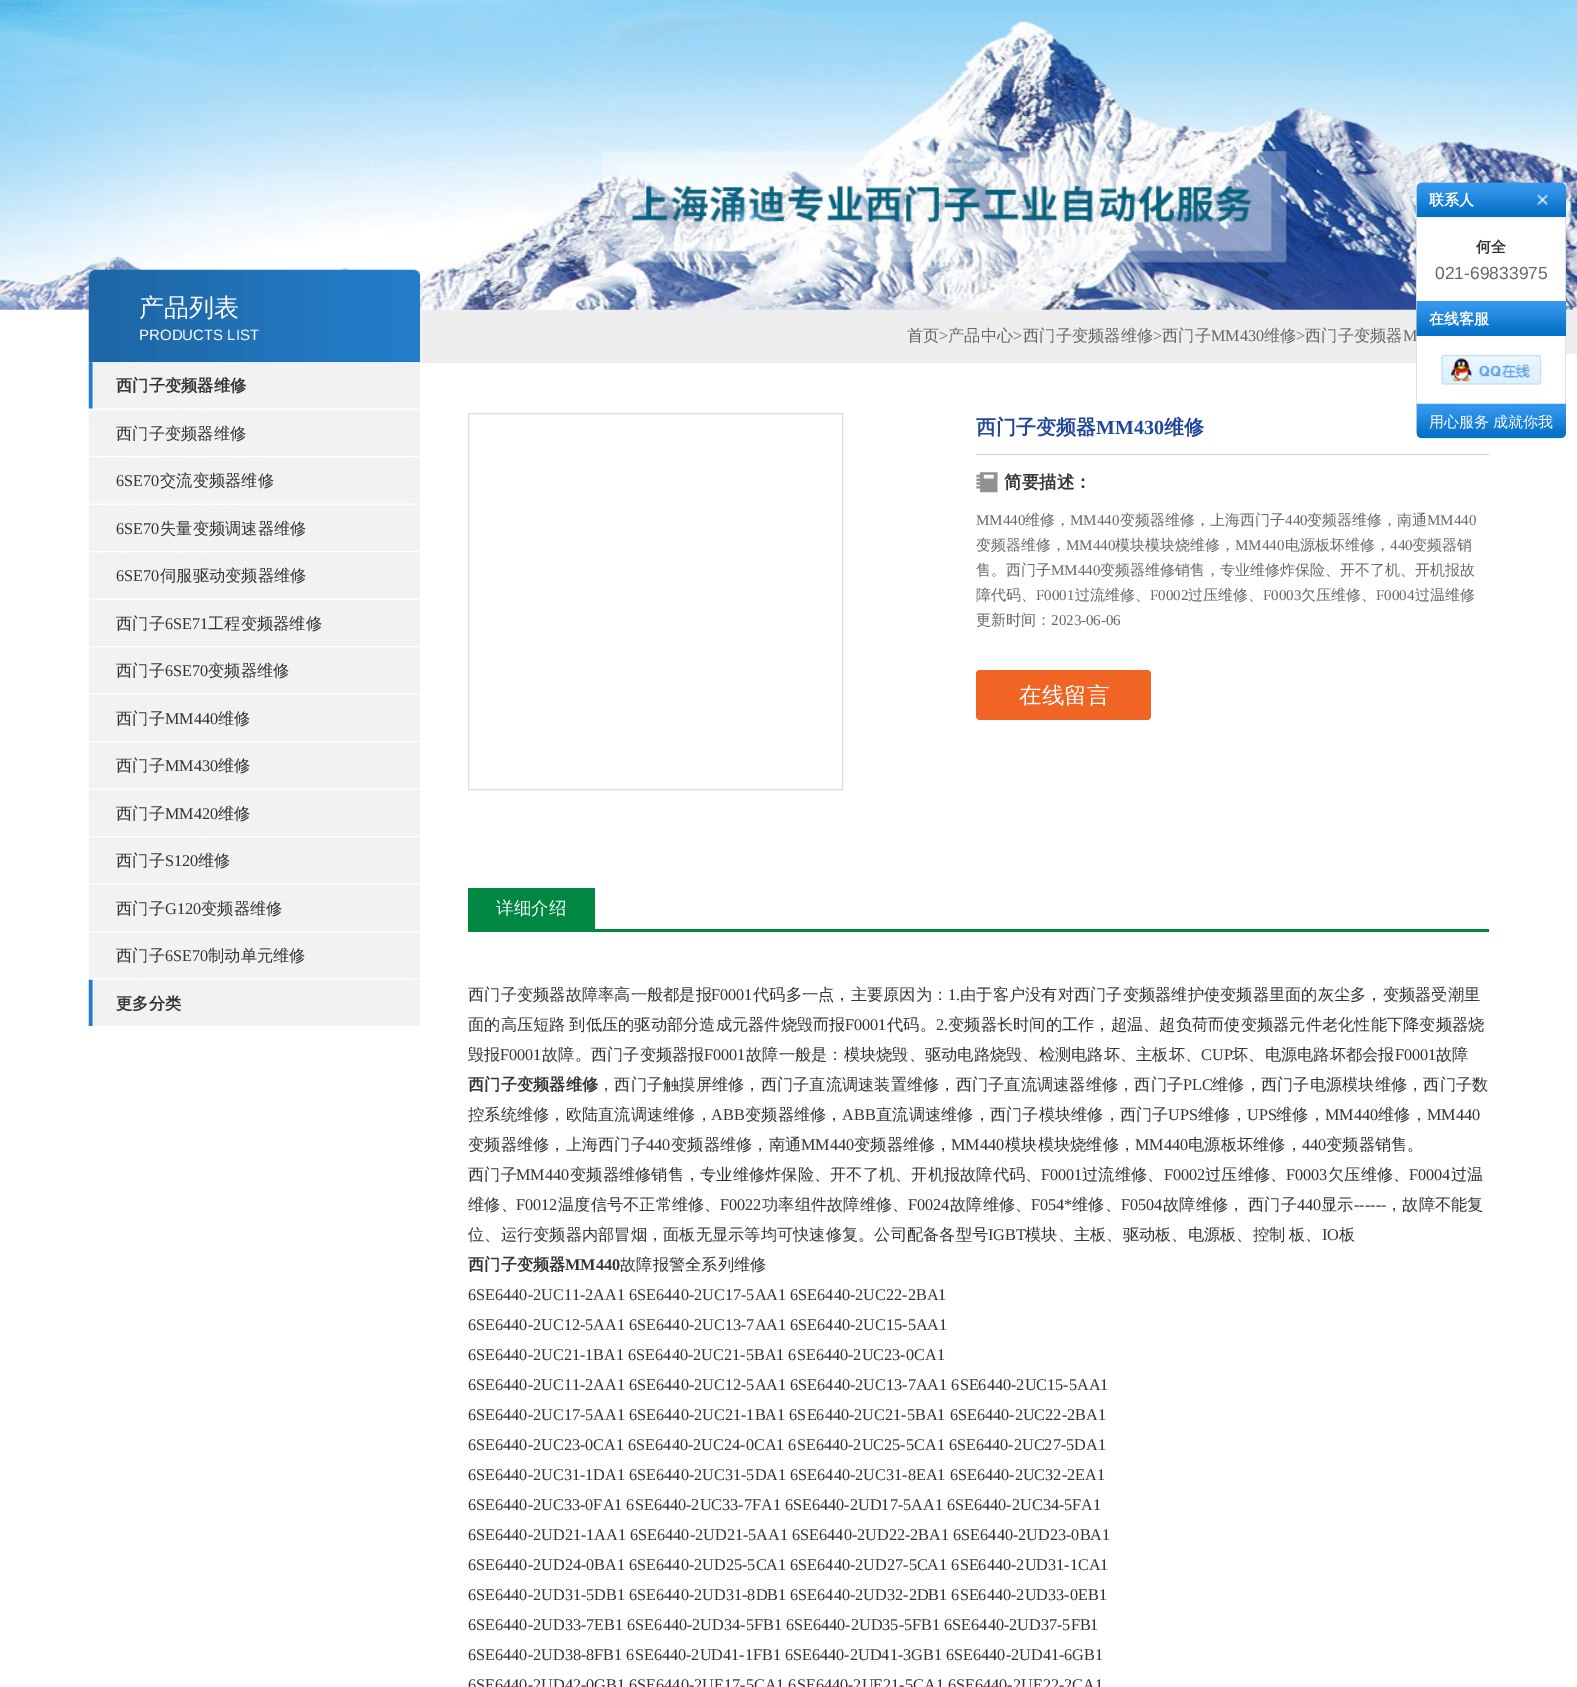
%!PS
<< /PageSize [1577 1687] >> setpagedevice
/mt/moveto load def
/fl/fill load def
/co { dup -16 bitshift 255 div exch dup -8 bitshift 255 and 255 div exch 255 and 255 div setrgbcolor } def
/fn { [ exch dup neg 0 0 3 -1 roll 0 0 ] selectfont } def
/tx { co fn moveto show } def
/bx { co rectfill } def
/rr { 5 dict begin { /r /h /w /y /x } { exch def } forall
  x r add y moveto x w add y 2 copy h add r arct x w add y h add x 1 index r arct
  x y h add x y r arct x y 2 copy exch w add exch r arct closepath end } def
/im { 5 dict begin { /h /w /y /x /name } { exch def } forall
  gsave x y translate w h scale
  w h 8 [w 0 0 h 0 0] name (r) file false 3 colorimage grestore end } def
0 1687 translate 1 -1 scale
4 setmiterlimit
0 0 1577 1687 16#FFFFFF bx
420 309 1157 45 16#EEEEEE bx
(media/1.raw) 0 0 1577 310 im
(media/2.raw) 88 269 332 94 im
(media/3.raw) 88 362 332 47 im
(media/4.raw) 88 409 332 47 im
(media/5.raw) 88 457 332 47 im
(media/4.raw) 88 504 332 47 im
(media/5.raw) 88 552 332 47 im
(media/4.raw) 88 599 332 47 im
(media/5.raw) 88 647 332 47 im
(media/4.raw) 88 694 332 47 im
(media/5.raw) 88 742 332 47 im
(media/4.raw) 88 789 332 47 im
(media/5.raw) 88 837 332 47 im
(media/4.raw) 88 884 332 47 im
(media/6.raw) 88 932 332 47 im
(media/7.raw) 88 979 332 47 im
420 354 996 9 16#EEEEEE bx
16#DDDDDD co
468.5 413.5 374 376 rectstroke
976 454 513 1 16#CCCCCC bx
(media/8.raw) 976 472 22 21 im
16#F06524 co
976 670 175 50 4 rr fl
468 929 1021 3 16#008742 bx
468 888 127 41 16#008742 bx
(media/12.raw) 1441 354 101 31 im
(产品列表) 139 316 /WenQuanYiZenHei-Medium 25 16#FFFFFF tx
(PRODUCTS LIST) 139 340 /LiberationSans-Regular 15 16#FFFFFF tx
(西门子变频器维修) 116 391 /WenQuanYiZenHei-Bold 16.25 16#353535 tx
(西门子变频器维修) 116 439 /WenQuanYiZenHei-Medium 16.25 16#353535 tx
(6SE70) 116 486 /LiberationSerif-Regular 16.25 16#353535 tx
(交流变频器维修) 160 486 /WenQuanYiZenHei-Medium 16.25 16#353535 tx
(6SE70) 116 534 /LiberationSerif-Regular 16.25 16#353535 tx
(失量变频调速器维修) 160 534 /WenQuanYiZenHei-Medium 16.25 16#353535 tx
(6SE70) 116 581 /LiberationSerif-Regular 16.25 16#353535 tx
(伺服驱动变频器维修) 160 581 /WenQuanYiZenHei-Medium 16.25 16#353535 tx
(西门子) 116 629 /WenQuanYiZenHei-Medium 16.25 16#353535 tx
(6SE71) 165 629 /LiberationSerif-Regular 16.25 16#353535 tx
(工程变频器维修) 208 629 /WenQuanYiZenHei-Medium 16.25 16#353535 tx
(西门子) 116 676 /WenQuanYiZenHei-Medium 16.25 16#353535 tx
(6SE70) 165 676 /LiberationSerif-Regular 16.25 16#353535 tx
(变频器维修) 208 676 /WenQuanYiZenHei-Medium 16.25 16#353535 tx
(西门子) 116 724 /WenQuanYiZenHei-Medium 16.25 16#353535 tx
(MM440) 165 724 /LiberationSerif-Regular 16.25 16#353535 tx
(维修) 218 724 /WenQuanYiZenHei-Medium 16.25 16#353535 tx
(西门子) 116 771 /WenQuanYiZenHei-Medium 16.25 16#353535 tx
(MM430) 165 771 /LiberationSerif-Regular 16.25 16#353535 tx
(维修) 218 771 /WenQuanYiZenHei-Medium 16.25 16#353535 tx
(西门子) 116 819 /WenQuanYiZenHei-Medium 16.25 16#353535 tx
(MM420) 165 819 /LiberationSerif-Regular 16.25 16#353535 tx
(维修) 218 819 /WenQuanYiZenHei-Medium 16.25 16#353535 tx
(西门子) 116 866 /WenQuanYiZenHei-Medium 16.25 16#353535 tx
(S120) 165 866 /LiberationSerif-Regular 16.25 16#353535 tx
(维修) 198 866 /WenQuanYiZenHei-Medium 16.25 16#353535 tx
(西门子) 116 914 /WenQuanYiZenHei-Medium 16.25 16#353535 tx
(G120) 165 914 /LiberationSerif-Regular 16.25 16#353535 tx
(变频器维修) 201 914 /WenQuanYiZenHei-Medium 16.25 16#353535 tx
(西门子) 116 961 /WenQuanYiZenHei-Medium 16.25 16#353535 tx
(6SE70) 165 961 /LiberationSerif-Regular 16.25 16#353535 tx
(制动单元维修) 208 961 /WenQuanYiZenHei-Medium 16.25 16#353535 tx
(更多分类) 116 1009 /WenQuanYiZenHei-Bold 16.25 16#353535 tx
(首页) 907 341 /WenQuanYiZenHei-Medium 16.25 16#686868 tx
(>) 939 341 /LiberationSerif-Regular 16.25 16#686868 tx
(产品中心) 948 341 /WenQuanYiZenHei-Medium 16.25 16#686868 tx
(>) 1013 341 /LiberationSerif-Regular 16.25 16#686868 tx
(西门子变频器维修) 1023 341 /WenQuanYiZenHei-Medium 16.25 16#686868 tx
(>) 1153 341 /LiberationSerif-Regular 16.25 16#686868 tx
(西门子) 1162 341 /WenQuanYiZenHei-Medium 16.25 16#686868 tx
(MM430) 1211 341 /LiberationSerif-Regular 16.25 16#686868 tx
(维修) 1264 341 /WenQuanYiZenHei-Medium 16.25 16#686868 tx
(>) 1296 341 /LiberationSerif-Regular 16.25 16#686868 tx
(西门子变频器) 1305 341 /WenQuanYiZenHei-Medium 16.25 16#686868 tx
(M) 1403 341 /LiberationSerif-Regular 16.25 16#686868 tx
(西门子变频器) 976 434 /WenQuanYiZenHei-Bold 20 16#22469A tx
(MM430) 1096 434 /LiberationSerif-Bold 20 16#22469A tx
(维修) 1164 434 /WenQuanYiZenHei-Bold 20 16#22469A tx
(简要描述：) 1004 488 /WenQuanYiZenHei-Bold 17.5 16#353535 tx
(MM440) 976 525 /LiberationSerif-Regular 15 16#686868 tx
(维修，) 1025 525 /WenQuanYiZenHei-Medium 15 16#686868 tx
(MM440) 1070 525 /LiberationSerif-Regular 15 16#686868 tx
(变频器维修，上海西门子) 1120 525 /WenQuanYiZenHei-Medium 15 16#686868 tx
(440) 1285 525 /LiberationSerif-Regular 15 16#686868 tx
(变频器维修，南通) 1307 525 /WenQuanYiZenHei-Medium 15 16#686868 tx
(MM440) 1427 525 /LiberationSerif-Regular 15 16#686868 tx
(变频器维修，) 976 550 /WenQuanYiZenHei-Medium 15 16#686868 tx
(MM440) 1066 550 /LiberationSerif-Regular 15 16#686868 tx
(模块模块烧维修，) 1115 550 /WenQuanYiZenHei-Medium 15 16#686868 tx
(MM440) 1235 550 /LiberationSerif-Regular 15 16#686868 tx
(电源板坏维修，) 1285 550 /WenQuanYiZenHei-Medium 15 16#686868 tx
(440) 1390 550 /LiberationSerif-Regular 15 16#686868 tx
(变频器销) 1412 550 /WenQuanYiZenHei-Medium 15 16#686868 tx
(售。西门子) 976 575 /WenQuanYiZenHei-Medium 15 16#686868 tx
(MM440) 1051 575 /LiberationSerif-Regular 15 16#686868 tx
(变频器维修销售，专业维修炸保险、开不了机、开机报故) 1100 575 /WenQuanYiZenHei-Medium 15 16#686868 tx
(障代码、) 976 600 /WenQuanYiZenHei-Medium 15 16#686868 tx
(F0001) 1036 600 /LiberationSerif-Regular 15 16#686868 tx
(过流维修、) 1075 600 /WenQuanYiZenHei-Medium 15 16#686868 tx
(F0002) 1150 600 /LiberationSerif-Regular 15 16#686868 tx
(过压维修、) 1188 600 /WenQuanYiZenHei-Medium 15 16#686868 tx
(F0003) 1263 600 /LiberationSerif-Regular 15 16#686868 tx
(欠压维修、) 1301 600 /WenQuanYiZenHei-Medium 15 16#686868 tx
(F0004) 1376 600 /LiberationSerif-Regular 15 16#686868 tx
(过温维修) 1415 600 /WenQuanYiZenHei-Medium 15 16#686868 tx
(更新时间：) 976 625 /WenQuanYiZenHei-Medium 15 16#686868 tx
(2023-06-06) 1051 625 /LiberationSerif-Regular 15 16#686868 tx
(在线留言) 1019 703 /WenQuanYiZenHei-Medium 22.5 16#FFFFFF tx
(详细介绍) 496 914 /WenQuanYiZenHei-Medium 17.5 16#FFFFFF tx
(西门子变频器故障率高一般都是报) 468 1000 /WenQuanYiZenHei-Medium 16.25 16#353535 tx
(F0001) 711 1000 /LiberationSerif-Regular 16.25 16#353535 tx
(代码多一点，主要原因为：) 753 1000 /WenQuanYiZenHei-Medium 16.25 16#353535 tx
(1.) 948 1000 /LiberationSerif-Regular 16.25 16#353535 tx
(由于客户没有对西门子变频器维护使变频器里面的灰尘多，变频器受潮里) 960 1000 /WenQuanYiZenHei-Medium 16.25 16#353535 tx
468 1030 mt -1 0 32 (面的高压短路 到低压的驱动部分造成元器件烧毁而报) widthshow
(F0001) 845 1030 /LiberationSerif-Regular 16.25 16#353535 tx
(代码。) 887 1030 /WenQuanYiZenHei-Medium 16.25 16#353535 tx
(2.) 936 1030 /LiberationSerif-Regular 16.25 16#353535 tx
(变频器长时间的工作，超温、超负荷而使变频器元件老化性能下降变频器烧) 948 1030 /WenQuanYiZenHei-Medium 16.25 16#353535 tx
(毁报) 468 1060 /WenQuanYiZenHei-Medium 16.25 16#353535 tx
(F0001) 500 1060 /LiberationSerif-Regular 16.25 16#353535 tx
(故障。西门子变频器报) 542 1060 /WenQuanYiZenHei-Medium 16.25 16#353535 tx
(F0001) 704 1060 /LiberationSerif-Regular 16.25 16#353535 tx
(故障一般是：模块烧毁、驱动电路烧毁、检测电路坏、主板坏、) 746 1060 /WenQuanYiZenHei-Medium 16.25 16#353535 tx
(CUP) 1201 1060 /LiberationSerif-Regular 16.25 16#353535 tx
(坏、电源电路坏都会报) 1232 1060 /WenQuanYiZenHei-Medium 16.25 16#353535 tx
(F0001) 1395 1060 /LiberationSerif-Regular 16.25 16#353535 tx
(故障) 1436 1060 /WenQuanYiZenHei-Medium 16.25 16#353535 tx
(西门子变频器维修) 468 1090 /WenQuanYiZenHei-Bold 16.25 16#353535 tx
(，西门子触摸屏维修，西门子直流调速装置维修，西门子直流调速器维修，西门子) 598 1090 /WenQuanYiZenHei-Medium 16.25 16#353535 tx
(PLC) 1183 1090 /LiberationSerif-Regular 16.25 16#353535 tx
(维修，西门子电源模块维修，西门子数) 1212 1090 /WenQuanYiZenHei-Medium 16.25 16#353535 tx
(控系统维修，欧陆直流调速维修，) 468 1120 /WenQuanYiZenHei-Medium 16.25 16#353535 tx
(ABB) 711 1120 /LiberationSerif-Regular 16.25 16#353535 tx
(变频器维修，) 745 1120 /WenQuanYiZenHei-Medium 16.25 16#353535 tx
(ABB) 842 1120 /LiberationSerif-Regular 16.25 16#353535 tx
(直流调速维修，西门子模块维修，西门子) 876 1120 /WenQuanYiZenHei-Medium 16.25 16#353535 tx
(UPS) 1168 1120 /LiberationSerif-Regular 16.25 16#353535 tx
(维修，) 1198 1120 /WenQuanYiZenHei-Medium 16.25 16#353535 tx
(UPS) 1247 1120 /LiberationSerif-Regular 16.25 16#353535 tx
(维修，) 1276 1120 /WenQuanYiZenHei-Medium 16.25 16#353535 tx
(MM440) 1325 1120 /LiberationSerif-Regular 16.25 16#353535 tx
(维修，) 1378 1120 /WenQuanYiZenHei-Medium 16.25 16#353535 tx
(MM440) 1427 1120 /LiberationSerif-Regular 16.25 16#353535 tx
(变频器维修，上海西门子) 468 1150 /WenQuanYiZenHei-Medium 16.25 16#353535 tx
(440) 646 1150 /LiberationSerif-Regular 16.25 16#353535 tx
(变频器维修，南通) 671 1150 /WenQuanYiZenHei-Medium 16.25 16#353535 tx
(MM440) 801 1150 /LiberationSerif-Regular 16.25 16#353535 tx
(变频器维修，) 854 1150 /WenQuanYiZenHei-Medium 16.25 16#353535 tx
(MM440) 951 1150 /LiberationSerif-Regular 16.25 16#353535 tx
(模块模块烧维修，) 1005 1150 /WenQuanYiZenHei-Medium 16.25 16#353535 tx
(MM440) 1135 1150 /LiberationSerif-Regular 16.25 16#353535 tx
(电源板坏维修，) 1188 1150 /WenQuanYiZenHei-Medium 16.25 16#353535 tx
(440) 1302 1150 /LiberationSerif-Regular 16.25 16#353535 tx
(变频器销售。) 1326 1150 /WenQuanYiZenHei-Medium 16.25 16#353535 tx
(西门子) 468 1180 /WenQuanYiZenHei-Medium 16.25 16#353535 tx
(MM440) 516 1180 /LiberationSerif-Regular 16.25 16#353535 tx
(变频器维修销售，专业维修炸保险、开不了机、开机报故障代码、) 570 1180 /WenQuanYiZenHei-Medium 16.25 16#353535 tx
(F0001) 1041 1180 /LiberationSerif-Regular 16.25 16#353535 tx
(过流维修、) 1082 1180 /WenQuanYiZenHei-Medium 16.25 16#353535 tx
(F0002) 1164 1180 /LiberationSerif-Regular 16.25 16#353535 tx
(过压维修、) 1205 1180 /WenQuanYiZenHei-Medium 16.25 16#353535 tx
(F0003) 1286 1180 /LiberationSerif-Regular 16.25 16#353535 tx
(欠压维修、) 1328 1180 /WenQuanYiZenHei-Medium 16.25 16#353535 tx
(F0004) 1409 1180 /LiberationSerif-Regular 16.25 16#353535 tx
(过温) 1451 1180 /WenQuanYiZenHei-Medium 16.25 16#353535 tx
(维修、) 468 1210 /WenQuanYiZenHei-Medium 16.25 16#353535 tx
(F0012) 516 1210 /LiberationSerif-Regular 16.25 16#353535 tx
(温度信号不正常维修、) 558 1210 /WenQuanYiZenHei-Medium 16.25 16#353535 tx
(F0022) 720 1210 /LiberationSerif-Regular 16.25 16#353535 tx
(功率组件故障维修、) 762 1210 /WenQuanYiZenHei-Medium 16.25 16#353535 tx
(F0024) 908 1210 /LiberationSerif-Regular 16.25 16#353535 tx
(故障维修、) 950 1210 /WenQuanYiZenHei-Medium 16.25 16#353535 tx
(F054*) 1031 1210 /LiberationSerif-Regular 16.25 16#353535 tx
(维修、) 1072 1210 /WenQuanYiZenHei-Medium 16.25 16#353535 tx
(F0504) 1121 1210 /LiberationSerif-Regular 16.25 16#353535 tx
/WenQuanYiZenHei-Medium 16.25 fn
1163 1210 mt -1 0 32 (故障维修， 西门子) widthshow
(440) 1297 1210 /LiberationSerif-Regular 16.25 16#353535 tx
(显示) 1321 1210 /WenQuanYiZenHei-Medium 16.25 16#353535 tx
(------) 1354 1210 /LiberationSerif-Regular 16.25 16#353535 tx
(，故障不能复) 1386 1210 /WenQuanYiZenHei-Medium 16.25 16#353535 tx
(位、运行变频器内部冒烟，面板无显示等均可快速修复。公司配备各型号) 468 1240 /WenQuanYiZenHei-Medium 16.25 16#353535 tx
(IGBT) 988 1240 /LiberationSerif-Regular 16.25 16#353535 tx
/WenQuanYiZenHei-Medium 16.25 fn
1025 1240 mt -1 0 32 (模块、主板、驱动板、电源板、控制 板、) widthshow
(IO) 1322 1240 /LiberationSerif-Regular 16.25 16#353535 tx
(板) 1339 1240 /WenQuanYiZenHei-Medium 16.25 16#353535 tx
(西门子变频器) 468 1270 /WenQuanYiZenHei-Bold 16.25 16#353535 tx
(MM440) 565 1270 /LiberationSerif-Bold 16.25 16#353535 tx
(故障报警全系列维修) 620 1270 /WenQuanYiZenHei-Medium 16.25 16#353535 tx
(6SE6440-2UC11-2AA1 6SE6440-2UC17-5AA1 6SE6440-2UC22-2BA1) 468 1300 /LiberationSerif-Regular 16.25 16#353535 tx
(6SE6440-2UC12-5AA1 6SE6440-2UC13-7AA1 6SE6440-2UC15-5AA1) 468 1330 /LiberationSerif-Regular 16.25 16#353535 tx
(6SE6440-2UC21-1BA1 6SE6440-2UC21-5BA1 6SE6440-2UC23-0CA1) 468 1360 /LiberationSerif-Regular 16.25 16#353535 tx
(6SE6440-2UC11-2AA1 6SE6440-2UC12-5AA1 6SE6440-2UC13-7AA1 6SE6440-2UC15-5AA1) 468 1390 /LiberationSerif-Regular 16.25 16#353535 tx
(6SE6440-2UC17-5AA1 6SE6440-2UC21-1BA1 6SE6440-2UC21-5BA1 6SE6440-2UC22-2BA1) 468 1420 /LiberationSerif-Regular 16.25 16#353535 tx
(6SE6440-2UC23-0CA1 6SE6440-2UC24-0CA1 6SE6440-2UC25-5CA1 6SE6440-2UC27-5DA1) 468 1450 /LiberationSerif-Regular 16.25 16#353535 tx
(6SE6440-2UC31-1DA1 6SE6440-2UC31-5DA1 6SE6440-2UC31-8EA1 6SE6440-2UC32-2EA1) 468 1480 /LiberationSerif-Regular 16.25 16#353535 tx
(6SE6440-2UC33-0FA1 6SE6440-2UC33-7FA1 6SE6440-2UD17-5AA1 6SE6440-2UC34-5FA1) 468 1510 /LiberationSerif-Regular 16.25 16#353535 tx
(6SE6440-2UD21-1AA1 6SE6440-2UD21-5AA1 6SE6440-2UD22-2BA1 6SE6440-2UD23-0BA1) 468 1540 /LiberationSerif-Regular 16.25 16#353535 tx
(6SE6440-2UD24-0BA1 6SE6440-2UD25-5CA1 6SE6440-2UD27-5CA1 6SE6440-2UD31-1CA1) 468 1570 /LiberationSerif-Regular 16.25 16#353535 tx
(6SE6440-2UD31-5DB1 6SE6440-2UD31-8DB1 6SE6440-2UD32-2DB1 6SE6440-2UD33-0EB1) 468 1600 /LiberationSerif-Regular 16.25 16#353535 tx
(6SE6440-2UD33-7EB1 6SE6440-2UD34-5FB1 6SE6440-2UD35-5FB1 6SE6440-2UD37-5FB1) 468 1630 /LiberationSerif-Regular 16.25 16#353535 tx
(6SE6440-2UD38-8FB1 6SE6440-2UD41-1FB1 6SE6440-2UD41-3GB1 6SE6440-2UD41-6GB1) 468 1660 /LiberationSerif-Regular 16.25 16#353535 tx
(6SE6440-2UD42-0GB1 6SE6440-2UE17-5CA1 6SE6440-2UE21-5CA1 6SE6440-2UE22-2CA1) 468 1690 /LiberationSerif-Regular 16.25 16#353535 tx
1416 183 150 171 16#FFFFFF bx
(media/9.raw) 1416 182 150 36 im
(联系人) 1429 205 /WenQuanYiZenHei-Bold 15 16#FFFFFF tx
(media/10.raw) 1537 194 11 11 im
1565 218 1 83 16#DFDFDF bx
1416 218 1 83 16#DFDFDF bx
(何全) 1476 252 /WenQuanYiZenHei-Bold 15 16#353535 tx
(021-69833975) 1435 279 /LiberationSans-Regular 17.5 16#686868 tx
(media/11.raw) 1416 301 151 35 im
(在线客服) 1429 324 /WenQuanYiZenHei-Bold 15 16#FFFFFF tx
1565 336 1 68 16#DFDFDF bx
1416 336 1 68 16#DFDFDF bx
(media/13.raw) 1416 403 150 36 im
(用心服务) 1429 427 /WenQuanYiZenHei-Medium 15 16#FFFFFF tx
(成就你我) 1493 427 /WenQuanYiZenHei-Medium 15 16#FFFFFF tx
showpage
